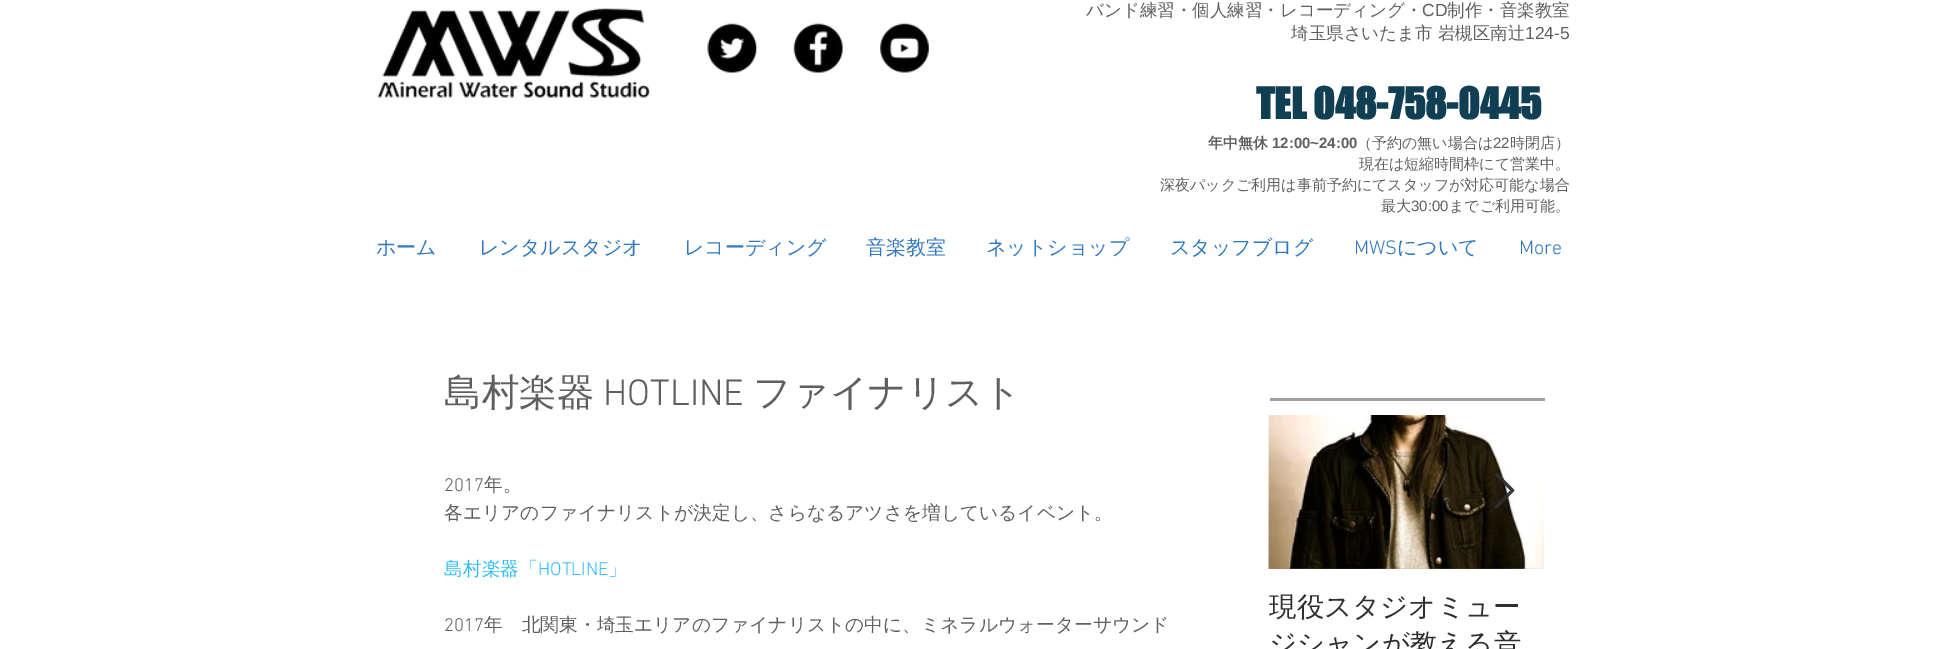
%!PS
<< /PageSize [1940 649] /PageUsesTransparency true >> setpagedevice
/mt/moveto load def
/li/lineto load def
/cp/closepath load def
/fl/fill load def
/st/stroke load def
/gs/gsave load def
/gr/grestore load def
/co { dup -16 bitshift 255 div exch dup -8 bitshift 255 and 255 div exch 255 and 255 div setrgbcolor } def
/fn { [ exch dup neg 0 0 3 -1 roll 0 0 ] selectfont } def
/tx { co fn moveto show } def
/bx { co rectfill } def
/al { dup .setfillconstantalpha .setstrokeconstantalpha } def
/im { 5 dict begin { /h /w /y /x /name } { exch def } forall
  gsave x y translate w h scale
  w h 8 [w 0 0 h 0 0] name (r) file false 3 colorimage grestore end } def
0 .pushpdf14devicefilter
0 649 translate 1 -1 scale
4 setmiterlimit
0 0 1940 649 16#FFFFFF bx
(media/1.raw) 377 8 273 90 im
(media/2.raw) 707 23 50 50 im
(media/3.raw) 793 23 50 50 im
(media/4.raw) 880 23 49 50 im
1270 398 275 3 16#A0A09F bx
(media/5.raw) 1268 415 276 154 im
(media/6.raw) 1268 415 276 154 im
0.9 al
16#2F2E2E co
1495 474 mt 1496.5 472.5 li 1514 490.5 li 1496.5 508 li 1495 506.5 li 1511 490.5 li cp fl
gs
1493 473 22 38 rectclip
1495 474 mt 1496.5 472.5 li 1514 490.5 li 1496.5 508 li 1495 506.5 li 1511 490.5 li cp st
gr
1 al
(バンド練習・個人練習・レコーディング・) 1086 16 /WenQuanYiZenHei-Medium 17.5 16#605E5E tx
(CD) 1422 16 /LiberationSans-Regular 17.5 16#605E5E tx
(制作・音楽教室) 1447 16 /WenQuanYiZenHei-Medium 17.5 16#605E5E tx
(埼玉県さいたま市 岩槻区南辻) 1291 39 /WenQuanYiZenHei-Medium 17.5 16#605E5E tx
(124-5) 1525 39 /LiberationSans-Regular 17.5 16#605E5E tx
(TEL 048-758-0445) 1256 119 /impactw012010-Bold 40 16#103F54 tx
(年中無休) 1208 148 /WenQuanYiZenHei-Bold 15 16#605E5E tx
(12:00~24:00) 1272 148 /LiberationSans-Bold 15 16#605E5E tx
(（予約の無い場合は) 1357 148 /WenQuanYiZenHei-Medium 15 16#605E5E tx
(22) 1493 148 /LiberationSans-Regular 15 16#605E5E tx
(時閉店）) 1510 148 /WenQuanYiZenHei-Medium 15 16#605E5E tx
(現在は短縮時間枠にて営業中。) 1359 169 /WenQuanYiZenHei-Medium 15 16#605E5E tx
(深夜パックご利用は事前予約にてスタッフが対応可能な場合) 1160 190 /WenQuanYiZenHei-Medium 15 16#605E5E tx
(最大) 1381 211 /WenQuanYiZenHei-Medium 15 16#605E5E tx
(30:00) 1411 211 /LiberationSans-Regular 15 16#605E5E tx
(までご利用可能。) 1449 211 /WenQuanYiZenHei-Medium 15 16#605E5E tx
(ホーム) 376 254 /WenQuanYiZenHei-Medium 20 16#3078BE tx
(レンタルスタジオ) 479 254 /WenQuanYiZenHei-Medium 20 16#3078BE tx
(レコーディング) 684 254 /WenQuanYiZenHei-Medium 20 16#3078BE tx
(音楽教室) 866 254 /WenQuanYiZenHei-Medium 20 16#3078BE tx
(ネットショップ) 986 254 /WenQuanYiZenHei-Medium 20 16#3078BE tx
(スタッフブログ) 1170 254 /WenQuanYiZenHei-Medium 20 16#3078BE tx
(MWS) 1354 254 /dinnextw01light-Light 20 16#3078BE tx
(について) 1397 254 /WenQuanYiZenHei-Medium 20 16#3078BE tx
(More) 1519 254 /dinnextw01light-Light 20 16#3078BE tx
(島村楽器) 444 405 /WenQuanYiZenHei-Medium 37.5 16#605E5E tx
(HOTLINE) 603 405 /dinnextw01light-Light 37.5 16#605E5E tx
(ファイナリスト) 753 405 /WenQuanYiZenHei-Medium 37.5 16#605E5E tx
(2017) 444 491 /dinnextw01light-Light 18.75 16#605E5E tx
(年。) 484 491 /WenQuanYiZenHei-Medium 18.75 16#605E5E tx
(各エリアのファイナリストが決定し、さらなるアツさを増しているイベント。) 444 519 /WenQuanYiZenHei-Medium 18.75 16#605E5E tx
(島村楽器「) 444 575 /WenQuanYiZenHei-Medium 18.75 16#30BDFF tx
(HOTLINE) 538 575 /dinnextw01light-Light 18.75 16#30BDFF tx
(」) 608 575 /WenQuanYiZenHei-Medium 18.75 16#30BDFF tx
(2017) 444 631 /dinnextw01light-Light 18.75 16#605E5E tx
(年　北関東・埼玉エリアのファイナリストの中に、ミネラルウォーターサウンド) 484 631 /WenQuanYiZenHei-Medium 18.75 16#605E5E tx
(現役スタジオミュー) 1269 616 /WenQuanYiZenHei-Medium 27.5 16#2F2E2E tx
(ジシャンが教える音) 1269 653 /WenQuanYiZenHei-Medium 27.5 16#2F2E2E tx
.poppdf14devicefilter showpage
